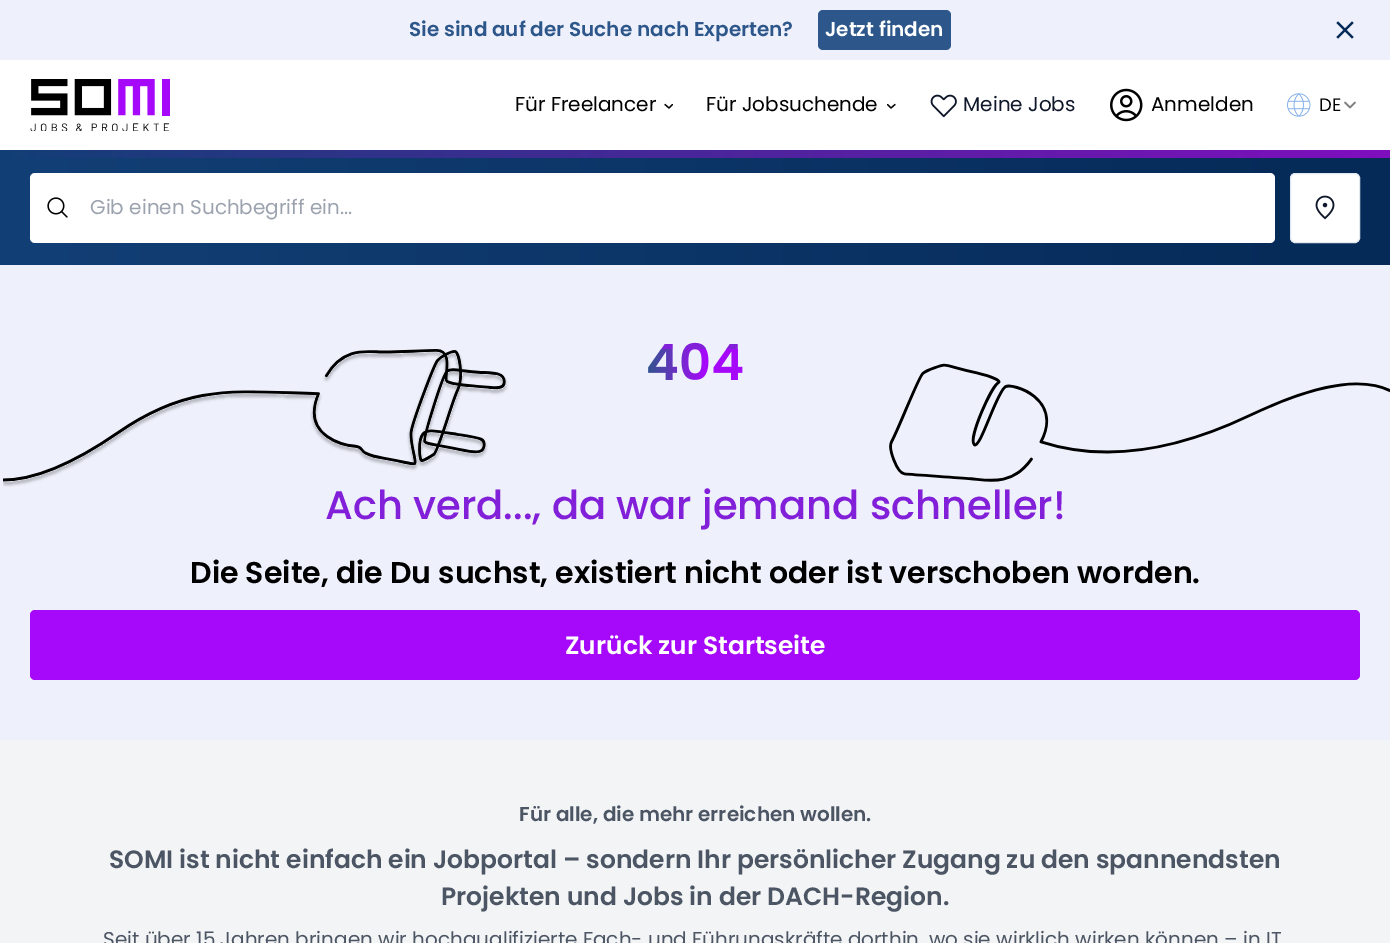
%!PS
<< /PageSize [1390 943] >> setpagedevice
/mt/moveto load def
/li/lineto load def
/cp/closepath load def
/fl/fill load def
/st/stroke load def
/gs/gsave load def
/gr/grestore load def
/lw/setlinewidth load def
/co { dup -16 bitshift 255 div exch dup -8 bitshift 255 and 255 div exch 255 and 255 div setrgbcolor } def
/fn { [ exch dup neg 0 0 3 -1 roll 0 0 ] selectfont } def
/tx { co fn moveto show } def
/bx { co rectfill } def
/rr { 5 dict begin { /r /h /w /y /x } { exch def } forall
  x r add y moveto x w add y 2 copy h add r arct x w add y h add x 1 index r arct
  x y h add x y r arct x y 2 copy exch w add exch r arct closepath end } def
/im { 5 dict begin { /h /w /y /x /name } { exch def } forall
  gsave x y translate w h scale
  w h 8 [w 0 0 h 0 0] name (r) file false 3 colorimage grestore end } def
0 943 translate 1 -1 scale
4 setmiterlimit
0 0 1390 943 16#FFFFFF bx
0 0 1390 60 16#EEF0FB bx
16#2D578B co
818 10 133 40 5 rr fl
(media/1.raw) 1336 21 18 18 im
(media/2.raw) 30 79 140 52 im
16#000000 co
1.2 lw
1 setlinecap
1 setlinejoin
665 104.5 mt 669 108 li 672.5 104.5 li st
887.5 104.5 mt 891 108 li 895 104.5 li st
(media/3.raw) 930 94 27 24 im
(media/4.raw) 1110 88 33 34 im
(media/5.raw) 1287 93 24 24 im
16#808080 co
1.7 lw
1345 102.5 mt 1350 107.5 li 1355 102.5 li st
gs 0 150 mt 1390 150 li 1390 158 li 0 158 li cp clip newpath
<< /ShadingType 2 /ColorSpace /DeviceRGB /Coords [0 154 1390 154] /Extend [true true] /Function << /FunctionType 2 /Domain [0 1] /C0 [.071 .247 .463] /C1 [.502 .055 .745] /N 1 >> >> shfill gr
gs 0 158 mt 1390 158 li 1390 265 li 0 265 li cp clip newpath
<< /ShadingType 2 /ColorSpace /DeviceRGB /Coords [0 211 1390 211] /Extend [true true] /Function << /FunctionType 2 /Domain [0 1] /C0 [.071 .247 .463] /C1 [.02 .165 .341] /N 1 >> >> shfill gr
16#FFFFFF co
30 173 1245 70 5 rr fl
(media/6.raw) 47 197 21 21 im
1290.5 173.5 69 69 4.5 rr gs fl gr
16#E2E8F0 co
1 lw
0 setlinecap
0 setlinejoin
st
(media/7.raw) 1315 195 20 25 im
0 265 1390 475 16#EEF0FB bx
16#A609FA co
30 610 1330 70 5 rr fl
0 740 1390 203 16#F3F4F6 bx
(Sie sind auf der Suche nach Experten?) 409 36 /Poppins-SemiBold 20 16#2D578B tx
(Jetzt finden) 825 36 /Poppins-SemiBold 20 16#FFFFFF tx
(Für Freelancer) 515 111 /Poppins-Regular 20 16#000000 tx
(Für Jobsuchende) 706 111 /Poppins-Regular 20 16#000000 tx
(Meine Jobs) 963 111 /Poppins-Regular 20 16#0F172A tx
(Anmelden) 1151 111 /Poppins-Regular 20 16#000000 tx
(DE) 1319 111 /Poppins-Regular 18 16#000000 tx
(Gib einen Suchbegriff ein...) 90 214 /Poppins-Regular 20 16#9CA3AF tx
(404) 646 380 /Poppins-SemiBold 50 16#8220D9 tx
(media/8.raw) 3 349 1387 138 im
(Ach verd..., da war jemand schneller!) 325 519 /Poppins-Medium 40 16#8220D9 tx
(Die Seite, die Du suchst, existiert nicht oder ist verschoben worden.) 190 583 /Poppins-SemiBold 30 16#000000 tx
(Zurück zur Startseite) 565 654 /Poppins-SemiBold 25 16#FFFFFF tx
(Für alle, die mehr erreichen wollen.) 519 821 /Poppins-SemiBold 20 16#4B5563 tx
(SOMI ist nicht einfach ein Jobportal – sondern Ihr persönlicher Zugang zu den spannendsten) 109 868 /Poppins-SemiBold 25 16#4B5563 tx
(Projekten und Jobs in der DACH-Region.) 441 905 /Poppins-SemiBold 25 16#4B5563 tx
(Seit über 15 Jahren bringen wir hochqualifizierte Fach- und Führungskräfte dorthin, wo sie wirklich wirken können – in IT) 103 946 /Poppins-Regular 20 16#4B5563 tx
showpage
